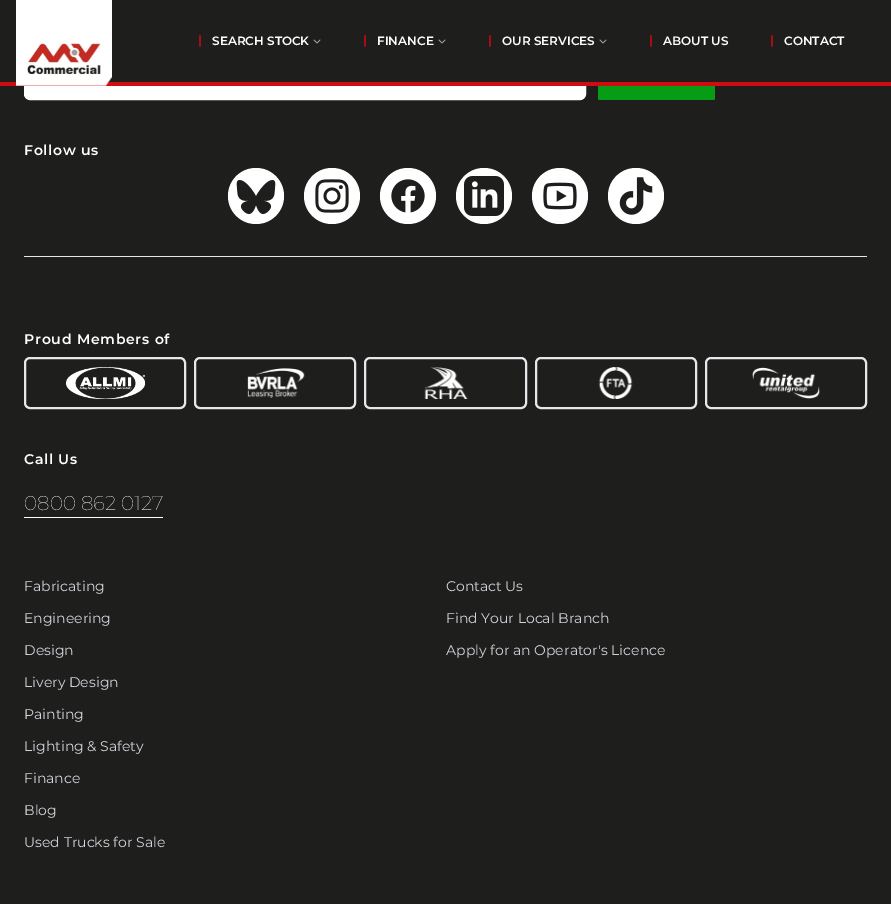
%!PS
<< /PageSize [891 904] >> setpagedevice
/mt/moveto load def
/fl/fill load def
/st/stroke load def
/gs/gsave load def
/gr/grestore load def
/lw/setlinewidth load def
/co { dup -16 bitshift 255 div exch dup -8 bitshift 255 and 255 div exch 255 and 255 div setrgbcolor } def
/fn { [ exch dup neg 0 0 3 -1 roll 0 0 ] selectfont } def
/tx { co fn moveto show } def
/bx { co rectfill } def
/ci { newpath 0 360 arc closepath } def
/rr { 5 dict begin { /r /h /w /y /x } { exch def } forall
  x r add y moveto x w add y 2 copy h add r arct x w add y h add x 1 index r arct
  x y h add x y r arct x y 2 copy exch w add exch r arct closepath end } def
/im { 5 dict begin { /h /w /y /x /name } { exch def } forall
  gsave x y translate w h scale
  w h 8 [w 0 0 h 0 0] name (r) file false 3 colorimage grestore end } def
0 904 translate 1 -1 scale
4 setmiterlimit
0 0 891 904 16#1E1E1C bx
16#FFFFFF co
24.5 58.5 561 41 5.5 rr gs fl gr
st
16#069C15 co
598 58 117 42 2 rr fl
24 58 691 24 16#1E1E1C bx
0 82 891 4 16#D20A11 bx
16 0 96 40 16#FFFFFF bx
(media/1.raw) 16 40 96 46 im
(media/2.raw) 199 35 2 12 im
(media/3.raw) 313 39 8 5 im
(media/2.raw) 364 35 2 12 im
(media/3.raw) 438 39 8 5 im
(media/2.raw) 489 35 2 12 im
(media/3.raw) 599 39 8 5 im
(media/2.raw) 650 35 2 12 im
(media/2.raw) 771 35 2 12 im
24 256 843 1 16#E5E7EB bx
16#FFFFFF co
256 196 28 ci fl
(media/4.raw) 236 180 40 34 im
332 196 28 ci fl
(media/5.raw) 315 179 34 34 im
408 196 28 ci fl
(media/6.raw) 391 179 34 34 im
484 196 28 ci fl
(media/7.raw) 464 176 40 40 im
560 196 28 ci fl
(media/8.raw) 543 182 34 28 im
636 196 28 ci fl
(media/9.raw) 619 177 34 38 im
16#E5E7EB co
2 lw
25 358 160 50 5 rr st
(media/10.raw) 66 367 79 32 im
195 358 160 50 5 rr st
(media/11.raw) 247 368 58 30 im
365 358 161 50 5 rr st
(media/12.raw) 424 367 44 32 im
536 358 160 50 5 rr st
(media/13.raw) 598 367 35 32 im
706 358 160 50 5 rr st
(media/14.raw) 752 367 68 32 im
24 517 139 1 16#FFFFFF bx
(SEARCH STOCK) 212 45 /Montserrat-SemiBold 12 16#FFFFFF tx
(FINANCE) 377 45 /Montserrat-SemiBold 12 16#FFFFFF tx
(OUR SERVICES) 502 45 /Montserrat-SemiBold 12 16#FFFFFF tx
(ABOUT US) 663 45 /Montserrat-SemiBold 12 16#FFFFFF tx
(CONTACT) 784 45 /Montserrat-SemiBold 12 16#FFFFFF tx
/Montserrat-SemiBold 14 fn
24 155 mt .75 0 (Follow us) ashow
24 344 mt .75 0 (Proud Members of) ashow
24 464 mt .75 0 (Call Us) ashow
(0800 862 0127) 24 510 /Montserrat-Thin 20 16#FFFFFF tx
(Fabricating) 24 591 /Montserrat-Regular 14 16#D1D5DB tx
(Engineering) 24 623 /Montserrat-Regular 14 16#D1D5DB tx
(Design) 24 655 /Montserrat-Regular 14 16#D1D5DB tx
(Livery Design) 24 687 /Montserrat-Regular 14 16#D1D5DB tx
(Painting) 24 719 /Montserrat-Regular 14 16#D1D5DB tx
(Lighting & Safety) 24 751 /Montserrat-Regular 14 16#D1D5DB tx
(Finance) 24 783 /Montserrat-Regular 14 16#D1D5DB tx
(Blog) 24 815 /Montserrat-Regular 14 16#D1D5DB tx
(Used Trucks for Sale) 24 847 /Montserrat-Regular 14 16#D1D5DB tx
(Contact Us) 446 591 /Montserrat-Regular 14 16#D1D5DB tx
(Find Your Local Branch) 446 623 /Montserrat-Regular 14 16#D1D5DB tx
(Apply for an Operator's Licence) 446 655 /Montserrat-Regular 14 16#D1D5DB tx
showpage
